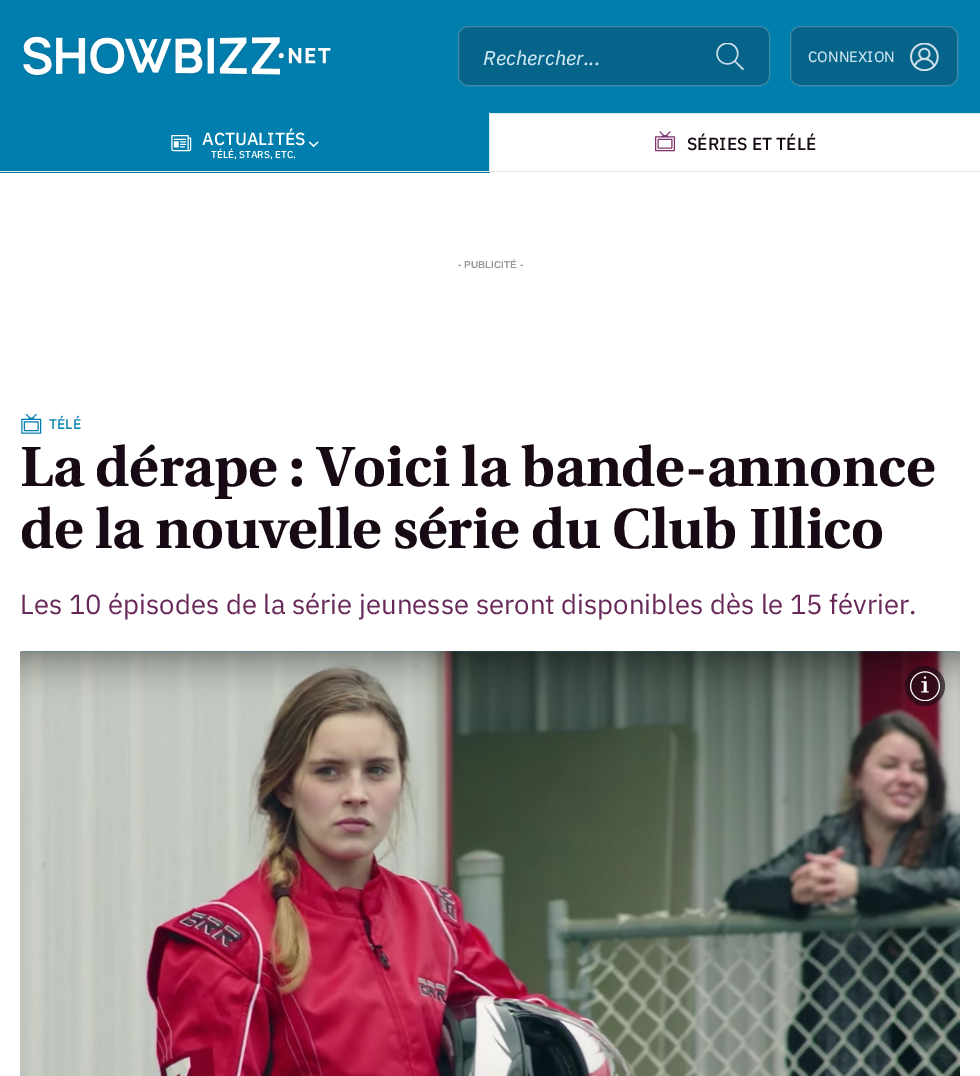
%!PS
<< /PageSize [980 1076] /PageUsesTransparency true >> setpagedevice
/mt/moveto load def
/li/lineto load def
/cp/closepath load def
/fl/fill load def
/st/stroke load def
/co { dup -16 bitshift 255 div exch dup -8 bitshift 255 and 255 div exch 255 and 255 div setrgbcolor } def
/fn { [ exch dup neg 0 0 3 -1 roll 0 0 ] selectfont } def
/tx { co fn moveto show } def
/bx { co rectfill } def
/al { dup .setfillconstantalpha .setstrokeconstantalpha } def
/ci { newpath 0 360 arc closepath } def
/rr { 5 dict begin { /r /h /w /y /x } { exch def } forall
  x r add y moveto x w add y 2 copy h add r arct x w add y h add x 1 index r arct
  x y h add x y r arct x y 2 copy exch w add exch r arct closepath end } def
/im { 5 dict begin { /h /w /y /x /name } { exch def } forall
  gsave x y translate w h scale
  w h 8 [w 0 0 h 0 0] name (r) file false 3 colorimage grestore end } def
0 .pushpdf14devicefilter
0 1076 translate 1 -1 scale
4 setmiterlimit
0 0 980 1076 16#FFFFFF bx
0 0 980 173 16#007FAF bx
(media/1.raw) 21 34 310 44 im
16#06638A co
458 26 312 60 10 rr fl
0.3 al
16#CCE5EF co
458.5 26.5 311 59 9.5 rr st
1 al
(media/2.raw) 716 43 28 27 im
16#06638A co
790 26 168 60 10 rr fl
0.3 al
16#CCE5EF co
790.5 26.5 167 59 9.5 rr st
1 al
(media/3.raw) 910 43 29 28 im
16#E8E7E8 co
490 112 mt 490 172 li 489 171 li 489 114 li cp fl
0 171 490 1 16#E8E7E8 bx
(media/4.raw) 171 135 21 17 im
(media/5.raw) 309 141 10 7 im
490 114 490 59 16#FFFFFF bx
490 113 490 1 16#E8E7E8 bx
490 171 490 1 16#E8E7E8 bx
(media/6.raw) 655 131 20 21 im
(media/7.raw) 21 414 21 20 im
(media/8.raw) 20 651 940 425 im
0.65 al
16#180A14 co
925 686 20 ci fl
1 al
(media/9.raw) 910 671 30 30 im
(Rechercher...) 483 65 /IBMPlexSans-Italic 20 16#CCE5EF tx
(CONNEXION) 808 62 /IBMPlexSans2-Regular 15 16#CCE5EF tx
(ACTUALITÉS) 202 145 /IBMPlexSans-Medium 17.5 16#FFFFFF tx
(TÉLÉ, STARS, ETC.) 211 158 /IBMPlexSans-Medium 10 16#FFFFFF tx
(SÉRIES ET TÉLÉ) 687 150 /IBMPlexSans-Medium 17.5 16#180A14 tx
(- PUBLICITÉ -) 458 268 /LiberationSans-Bold 10 16#999999 tx
(TÉLÉ) 49 429 /IBMPlexSans-Medium 14 16#007FAF tx
(La dérape : Voici la bande-annonce) 20 486 /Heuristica-Bold 56.25 16#180A14 tx
(de la nouvelle série du Club Illico) 20 548 /Heuristica-Bold 56.25 16#180A14 tx
(Les 10 épisodes de la série jeunesse seront disponibles dès le 15 février.) 20 614 /IBMPlexSans-Regular 27.5 16#682959 tx
.poppdf14devicefilter showpage
